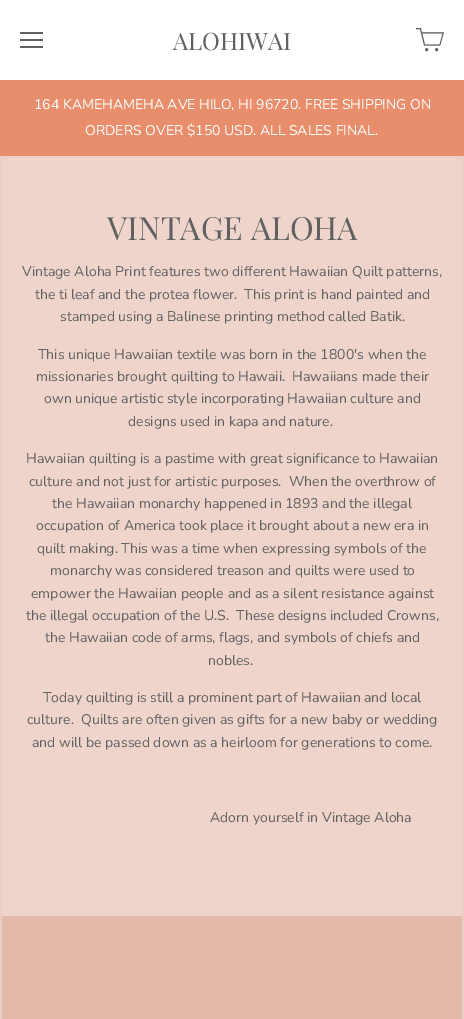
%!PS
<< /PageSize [464 1019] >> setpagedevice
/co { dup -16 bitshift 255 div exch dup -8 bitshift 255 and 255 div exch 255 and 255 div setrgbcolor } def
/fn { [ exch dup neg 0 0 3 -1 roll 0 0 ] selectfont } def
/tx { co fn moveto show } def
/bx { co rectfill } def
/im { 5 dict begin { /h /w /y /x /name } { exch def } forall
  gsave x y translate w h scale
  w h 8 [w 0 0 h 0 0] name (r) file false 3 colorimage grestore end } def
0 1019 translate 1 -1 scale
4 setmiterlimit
0 0 464 1019 16#ECCEC4 bx
0 0 464 80 16#FFFFFF bx
20 32 23 2 16#606060 bx
20 39 23 2 16#606060 bx
20 46 23 2 16#606060 bx
(media/1.raw) 416 28 28 24 im
0 80 464 76 16#E98E6C bx
2 158 460 758 16#EED4CB bx
2 916 460 103 16#E3B9AA bx
(ALOHIWAI) 173 50 /PlayfairDisplay-Regular 24 16#606060 tx
(164 KAMEHAMEHA AVE HILO, HI 96720. FREE SHIPPING ON) 34 109 /NunitoSans-Regular 14 16#FFFFFF tx
(ORDERS OVER $150 USD. ALL SALES FINAL.) 85 135 /NunitoSans-Regular 14 16#FFFFFF tx
(VINTAGE ALOHA) 107 240 /PlayfairDisplay-Regular 32 16#606060 tx
(Vintage Aloha Print features two different Hawaiian Quilt patterns,) 22 276 /NunitoSans-Regular 14 16#606060 tx
(the ti leaf and the protea flower.  This print is hand painted and) 35 299 /NunitoSans-Regular 14 16#606060 tx
(stamped using a Balinese printing method called Batik.) 60 321 /NunitoSans-Regular 14 16#606060 tx
(This unique Hawaiian textile was born in the 1800's when the) 38 359 /NunitoSans-Regular 14 16#606060 tx
(missionaries brought quilting to Hawaii.  Hawaiians made their) 36 381 /NunitoSans-Regular 14 16#606060 tx
(own unique artistic style incorporating Hawaiian culture and) 44 403 /NunitoSans-Regular 14 16#606060 tx
(designs used in kapa and nature.) 128 426 /NunitoSans-Regular 14 16#606060 tx
(Hawaiian quilting is a pastime with great significance to Hawaiian) 26 463 /NunitoSans-Regular 14 16#606060 tx
(culture and not just for artistic purposes.  When the overthrow of) 29 486 /NunitoSans-Regular 14 16#606060 tx
(the Hawaiian monarchy happened in 1893 and the illegal) 52 508 /NunitoSans-Regular 14 16#606060 tx
(occupation of America took place it brought about a new era in) 36 530 /NunitoSans-Regular 14 16#606060 tx
(quilt making. This was a time when expressing symbols of the) 37 553 /NunitoSans-Regular 14 16#606060 tx
(monarchy was considered treason and quilts were used to) 50 575 /NunitoSans-Regular 14 16#606060 tx
(empower the Hawaiian people and as a silent resistance against) 31 598 /NunitoSans-Regular 14 16#606060 tx
(the illegal occupation of the U.S.  These designs included Crowns,) 26 620 /NunitoSans-Regular 14 16#606060 tx
(the Hawaiian code of arms, flags, and symbols of chiefs and) 45 642 /NunitoSans-Regular 14 16#606060 tx
(nobles.) 208 665 /NunitoSans-Regular 14 16#606060 tx
(Today quilting is still a prominent part of Hawaiian and local) 43 702 /NunitoSans-Regular 14 16#606060 tx
(culture.  Quilts are often given as gifts for a new baby or wedding) 27 724 /NunitoSans-Regular 14 16#606060 tx
(and will be passed down as a heirloom for generations to come.) 32 747 /NunitoSans-Regular 14 16#606060 tx
(Adorn yourself in Vintage Aloha) 210 822 /NunitoSans-Regular 14 16#606060 tx
showpage
